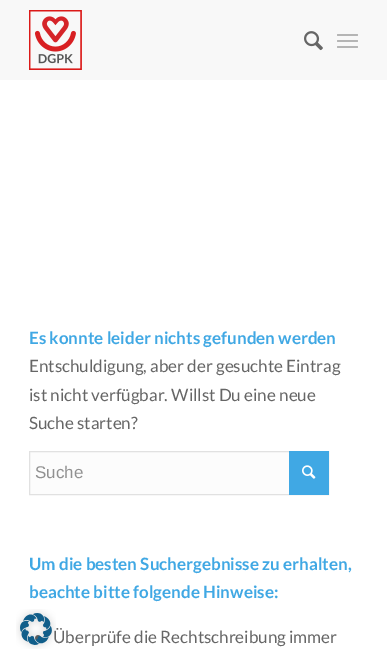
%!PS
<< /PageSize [387 665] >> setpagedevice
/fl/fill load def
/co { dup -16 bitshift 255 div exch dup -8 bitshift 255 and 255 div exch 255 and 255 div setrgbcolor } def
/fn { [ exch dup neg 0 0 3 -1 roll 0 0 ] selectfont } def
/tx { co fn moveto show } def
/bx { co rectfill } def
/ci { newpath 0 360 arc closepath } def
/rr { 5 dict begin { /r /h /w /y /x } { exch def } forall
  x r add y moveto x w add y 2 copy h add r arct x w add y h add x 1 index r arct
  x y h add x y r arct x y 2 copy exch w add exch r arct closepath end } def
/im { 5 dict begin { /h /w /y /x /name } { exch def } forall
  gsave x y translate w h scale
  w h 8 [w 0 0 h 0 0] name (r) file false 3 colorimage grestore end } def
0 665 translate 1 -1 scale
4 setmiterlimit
0 0 387 665 16#FFFFFF bx
0 0 387 80 16#F8F8F8 bx
(media/1.raw) 29 10 53 60 im
(media/2.raw) 304 31 19 20 im
16#B5B5B5 co
337 40 21 2 1 rr fl
337 34 21 2 1 rr fl
337 46 21 2 1 rr fl
30 452 259 42 16#FCFCFC bx
16#E1E1E1 co
29.5 451.5 299 43 rectstroke
289 451 40 44 16#40A8E4 bx
(media/3.raw) 302 465 14 14 im
16#666666 co
38 638 3 ci fl
(Es konnte leider nichts gefunden werden) 29 344 /Lato-Bold 17 16#40A8E4 tx
(Entschuldigung, aber der gesuchte Eintrag) 29 372 /Lato-Regular 17 16#666666 tx
(ist nicht verfügbar. Willst Du eine neue) 29 401 /Lato-Regular 17 16#666666 tx
(Suche starten?) 29 429 /Lato-Regular 17 16#666666 tx
(Suche) 35 478 /LiberationSans-Regular 17 16#919191 tx
(Um die besten Suchergebnisse zu erhalten,) 29 570 /Lato-Bold 17 16#40A8E4 tx
(beachte bitte folgende Hinweise:) 29 598 /Lato-Bold 17 16#40A8E4 tx
(Überprüfe die Rechtschreibung immer) 53 643 /Lato-Regular 17 16#666666 tx
(media/4.raw) 16 609 40 40 im
showpage
